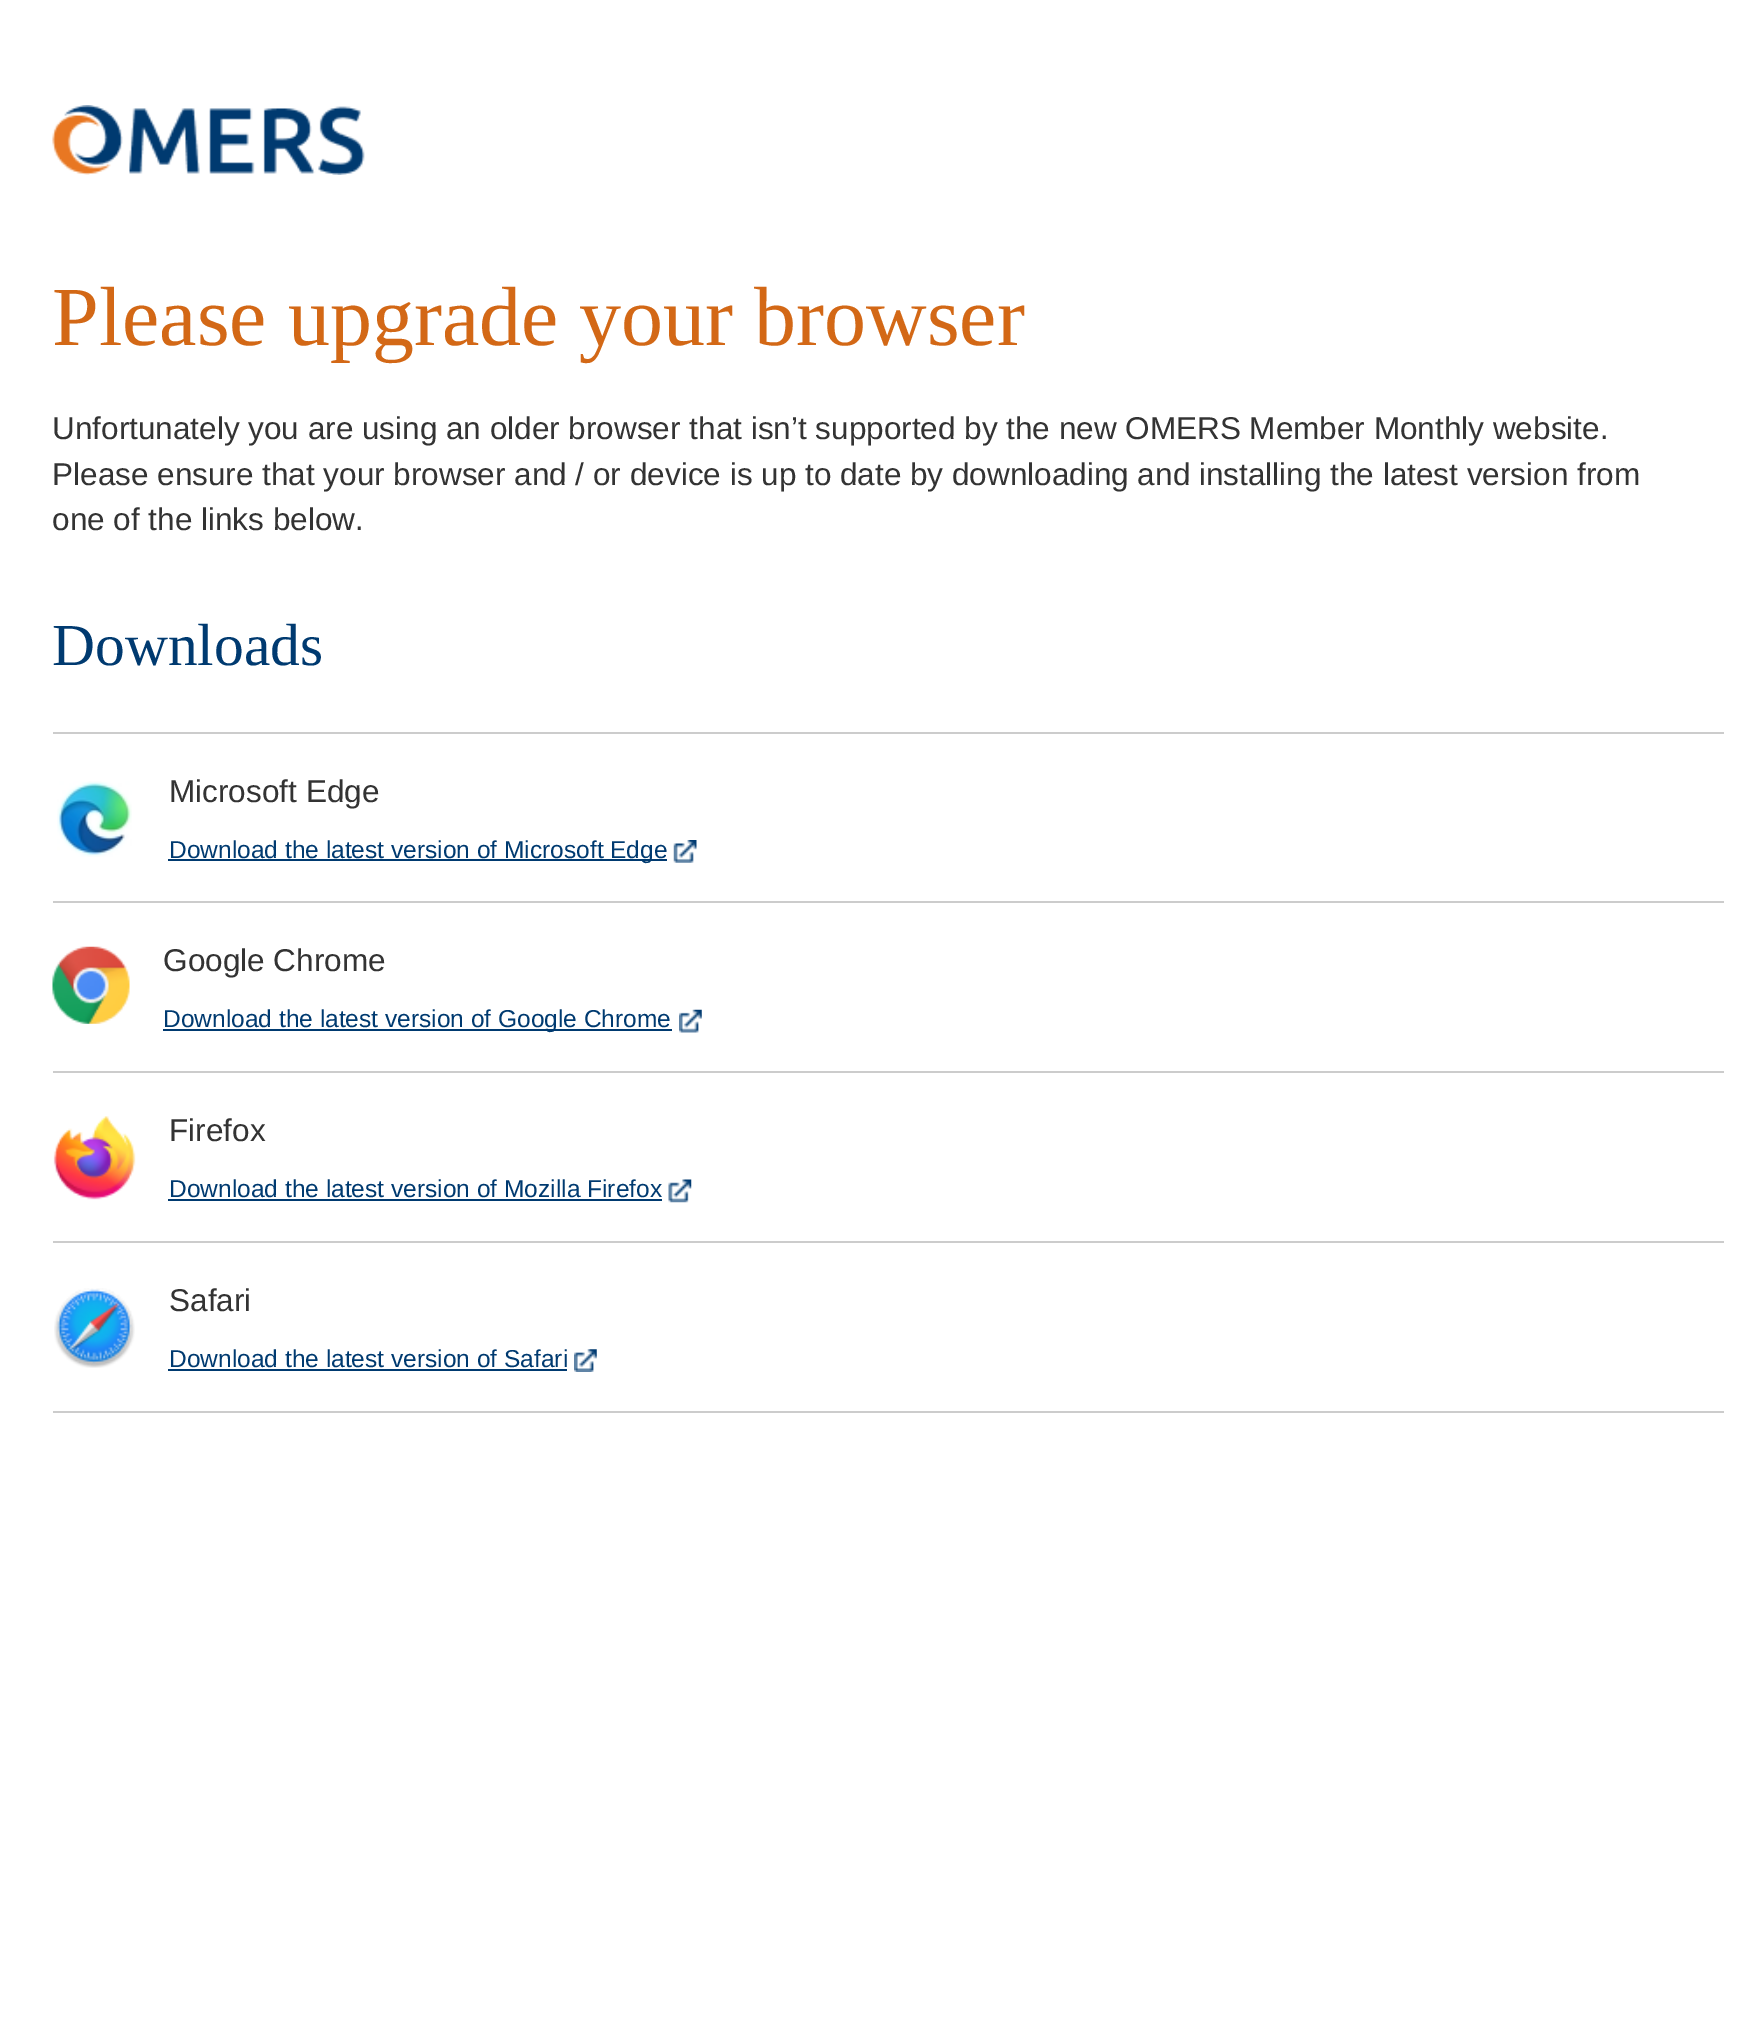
%!PS
<< /PageSize [1748 2036] >> setpagedevice
/co { dup -16 bitshift 255 div exch dup -8 bitshift 255 and 255 div exch 255 and 255 div setrgbcolor } def
/fn { [ exch dup neg 0 0 3 -1 roll 0 0 ] selectfont } def
/tx { co fn moveto show } def
/bx { co rectfill } def
/im { 5 dict begin { /h /w /y /x /name } { exch def } forall
  gsave x y translate w h scale
  w h 8 [w 0 0 h 0 0] name (r) file false 3 colorimage grestore end } def
0 2036 translate 1 -1 scale
4 setmiterlimit
0 0 1748 2036 16#FFFFFF bx
(media/1.raw) 52 105 313 70 im
53 732 1671 2 16#CCCCCC bx
53 901 1671 2 16#CCCCCC bx
(media/2.raw) 57 781 75 76 im
168 859 499 2 16#003A70 bx
(media/3.raw) 673 840 24 23 im
53 1071 1671 2 16#CCCCCC bx
(media/4.raw) 52 946 78 78 im
163 1029 509 2 16#003A70 bx
(media/5.raw) 679 1009 23 24 im
53 1241 1671 2 16#CCCCCC bx
(media/6.raw) 53 1116 83 84 im
168 1199 494 2 16#003A70 bx
(media/7.raw) 668 1179 24 24 im
53 1411 1671 2 16#CCCCCC bx
(media/8.raw) 54 1288 81 80 im
168 1369 399 2 16#003A70 bx
(media/9.raw) 574 1349 23 23 im
(Please upgrade your browser) 52 345 /LiberationSerif-Regular 84 16#D36816 tx
(Unfortunately you are using an older browser that isn’t supported by the new OMERS Member Monthly website.) 52 439 /LiberationSans-Regular 31.5 16#333333 tx
(Please ensure that your browser and / or device is up to date by downloading and installing the latest version from) 52 485 /LiberationSans-Regular 31.5 16#333333 tx
(one of the links below.) 52 530 /LiberationSans-Regular 31.5 16#333333 tx
(Downloads) 52 665 /LiberationSerif-Regular 59.5 16#003A70 tx
(Microsoft Edge) 169 802 /LiberationSans-Regular 31.5 16#333333 tx
(Download the latest version of Microsoft Edge) 169 858 /LiberationSans-Regular 24.5 16#003A70 tx
(Google Chrome) 163 971 /LiberationSans-Regular 31.5 16#333333 tx
(Download the latest version of Google Chrome) 163 1027 /LiberationSans-Regular 24.5 16#003A70 tx
(Firefox) 169 1141 /LiberationSans-Regular 31.5 16#333333 tx
(Download the latest version of Mozilla Firefox) 169 1197 /LiberationSans-Regular 24.5 16#003A70 tx
(Safari) 169 1311 /LiberationSans-Regular 31.5 16#333333 tx
(Download the latest version of Safari) 169 1367 /LiberationSans-Regular 24.5 16#003A70 tx
showpage
